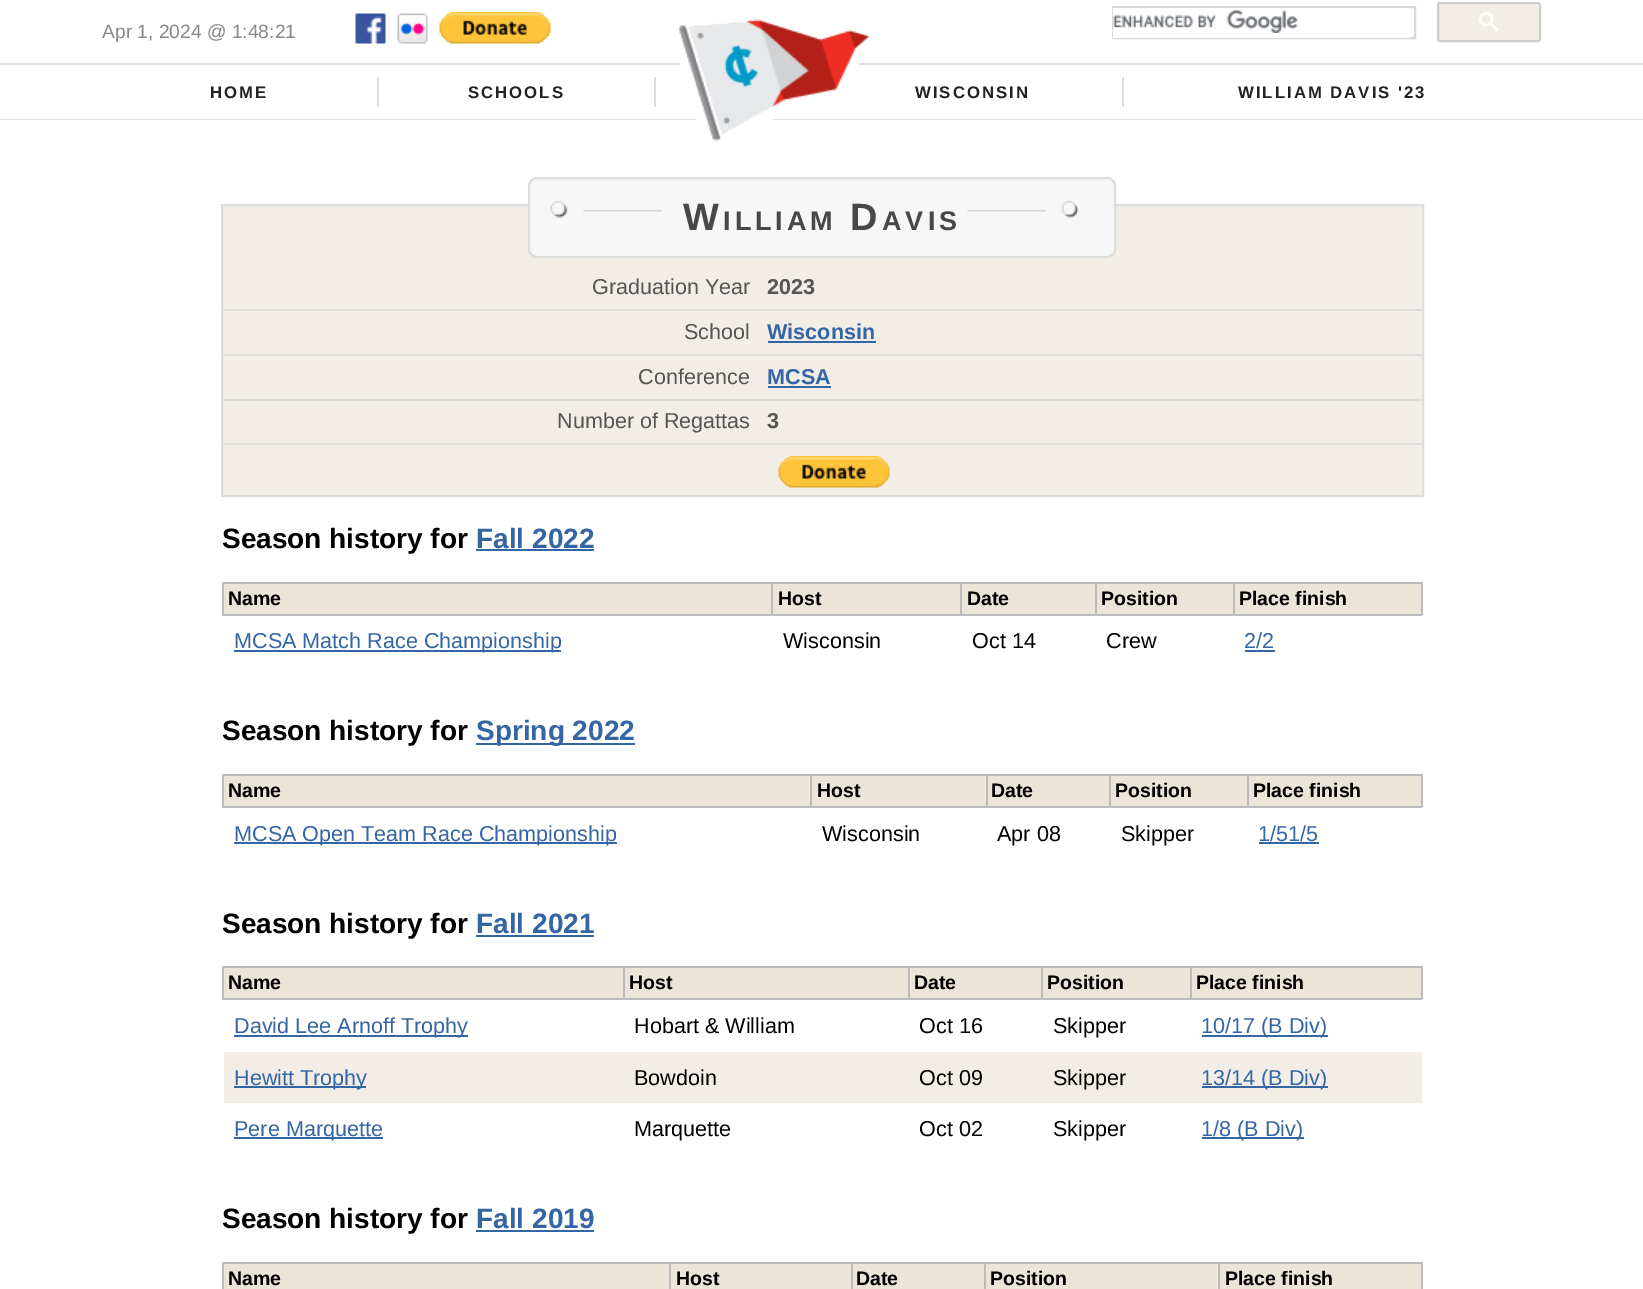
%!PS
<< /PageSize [1643 1289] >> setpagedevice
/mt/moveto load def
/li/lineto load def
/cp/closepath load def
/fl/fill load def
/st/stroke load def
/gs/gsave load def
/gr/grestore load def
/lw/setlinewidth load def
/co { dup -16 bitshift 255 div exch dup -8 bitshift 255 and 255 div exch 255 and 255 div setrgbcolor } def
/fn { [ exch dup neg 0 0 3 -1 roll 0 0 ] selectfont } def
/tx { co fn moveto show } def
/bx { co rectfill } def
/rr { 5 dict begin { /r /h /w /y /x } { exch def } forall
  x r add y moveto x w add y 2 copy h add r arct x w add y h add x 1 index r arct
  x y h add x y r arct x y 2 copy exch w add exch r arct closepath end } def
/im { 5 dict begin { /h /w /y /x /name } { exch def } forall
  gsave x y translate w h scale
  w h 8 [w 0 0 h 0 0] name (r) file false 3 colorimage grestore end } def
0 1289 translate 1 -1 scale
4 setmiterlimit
0 0 1643 1289 16#FFFFFF bx
(media/1.raw) 355 13 31 31 im
(media/2.raw) 397 13 31 31 im
(media/3.raw) 439 12 112 32 im
16#D9D9D9 co
2 lw
1113 7 302 31 rectstroke
1113 8 296 30 16#FFFFFF bx
(media/4.raw) 1113 10 185 23 im
16#F2EDE6 co
1438 3 102 38 2 rr gs fl gr
16#CCCCCC co
st
(media/5.raw) 1479 12 20 20 im
0 63 1643 2 16#DDDDDD bx
0 119 1643 1 16#DDDDDD bx
377 77 2 30 16#DDDDDD bx
654 77 2 30 16#DDDDDD bx
(media/6.raw) 678 19 191 123 im
1122 77 2 30 16#DDDDDD bx
16#F2EDE6 co
222 205 mt 1423 205 li 1423 496 li 222 496 li cp gs fl gr
16#DDDDDD co
st
16#F7F7F7 co
529 178 586 79 8 rr gs fl gr
16#DDDDDD co
st
(media/7.raw) 550 200 113 18 im
(media/8.raw) 967 200 112 18 im
222 309 1202 2 16#DDDDDD bx
222 354 1202 2 16#DDDDDD bx
768 341 108 2 16#3465A4 bx
222 399 1202 2 16#DDDDDD bx
768 386 63 2 16#3465A4 bx
222 443 1202 2 16#DDDDDD bx
(media/9.raw) 778 456 112 32 im
476 549 118 2 16#3465A4 bx
224 584 1197 30 16#EAE5D6 bx
222 582 1200 2 16#BBBBBB bx
1421 582 2 33 16#BBBBBB bx
222 614 1200 2 16#BBBBBB bx
222 582 2 33 16#BBBBBB bx
771 582 2 33 16#BBBBBB bx
960 582 2 33 16#BBBBBB bx
1095 582 2 33 16#BBBBBB bx
1233 582 2 33 16#BBBBBB bx
234 650 327 2 16#3465A4 bx
1245 650 30 2 16#3465A4 bx
476 743 159 2 16#3465A4 bx
224 776 1197 30 16#EAE5D6 bx
222 774 1200 2 16#BBBBBB bx
1421 774 2 33 16#BBBBBB bx
222 806 1200 2 16#BBBBBB bx
222 774 2 33 16#BBBBBB bx
810 774 2 33 16#BBBBBB bx
986 774 2 33 16#BBBBBB bx
1109 774 2 33 16#BBBBBB bx
1247 774 2 33 16#BBBBBB bx
234 842 383 2 16#3465A4 bx
1259 842 60 2 16#3465A4 bx
476 935 118 2 16#3465A4 bx
224 968 1197 30 16#EAE5D6 bx
222 966 1200 2 16#BBBBBB bx
1421 966 2 33 16#BBBBBB bx
222 998 1200 2 16#BBBBBB bx
222 966 2 33 16#BBBBBB bx
623 966 2 33 16#BBBBBB bx
908 966 2 33 16#BBBBBB bx
1041 966 2 33 16#BBBBBB bx
1190 966 2 33 16#BBBBBB bx
234 1035 234 2 16#3465A4 bx
1202 1035 126 2 16#3465A4 bx
224 1052 1198 51 16#F2EDE6 bx
234 1086 132 2 16#3465A4 bx
1202 1086 126 2 16#3465A4 bx
234 1137 149 2 16#3465A4 bx
1202 1137 102 2 16#3465A4 bx
476 1230 118 2 16#3465A4 bx
224 1264 1197 25 16#EAE5D6 bx
222 1262 1200 2 16#BBBBBB bx
1421 1262 2 27 16#BBBBBB bx
222 1262 2 27 16#BBBBBB bx
669 1262 2 27 16#BBBBBB bx
851 1262 2 27 16#BBBBBB bx
984 1262 2 27 16#BBBBBB bx
1218 1262 2 27 16#BBBBBB bx
(Apr 1, 2024 @ 1:48:21) 102 38 /LiberationSans-Regular 19.25 16#888888 tx
/LiberationSans-Bold 16.75 fn
16#222222 co
210 98 mt 2 0 (HOME) ashow
468 98 mt 2 0 (SCHOOLS) ashow
915 98 mt 2 0 (WISCONSIN) ashow
1238 98 mt 2 0 (WILLIAM DAVIS '23) ashow
/LiberationSans-Bold 38 fn
16#48484A co
683 230 mt 4 0 (W) ashow
/LiberationSans-Bold 27 fn
723 230 mt 4 0 (ILLIAM) ashow
/LiberationSans-Bold 38 fn
850 230 mt 4 0 (D) ashow
/LiberationSans-Bold 27 fn
882 230 mt 4 0 (AVIS) ashow
(Graduation Year) 592 294 /LiberationSans-Regular 21.6 16#555555 tx
(2023) 767 294 /LiberationSans-Bold 21.6 16#555555 tx
(School) 684 339 /LiberationSans-Regular 21.6 16#555555 tx
(Wisconsin) 767 339 /LiberationSans-Bold 21.6 16#3465A4 tx
(Conference) 638 384 /LiberationSans-Regular 21.6 16#555555 tx
(MCSA) 767 384 /LiberationSans-Bold 21.6 16#3465A4 tx
(Number of Regattas) 557 428 /LiberationSans-Regular 21.6 16#555555 tx
(3) 767 428 /LiberationSans-Bold 21.6 16#555555 tx
(Season history for) 222 548 /LiberationSans-Bold 28 16#000000 tx
(Fall 2022) 476 548 /LiberationSans-Bold 28 16#3465A4 tx
(Name) 228 605 /LiberationSans-Bold 19.5 16#000000 tx
(Host) 778 605 /LiberationSans-Bold 19.5 16#000000 tx
(Date) 967 605 /LiberationSans-Bold 19.5 16#000000 tx
(Position) 1101 605 /LiberationSans-Bold 19.5 16#000000 tx
(Place finish) 1239 605 /LiberationSans-Bold 19.5 16#000000 tx
(MCSA Match Race Championship) 234 648 /LiberationSans-Regular 21.6 16#3465A4 tx
(Wisconsin) 783 648 /LiberationSans-Regular 21.6 16#000000 tx
(Oct 14) 972 648 /LiberationSans-Regular 21.6 16#000000 tx
(Crew) 1106 648 /LiberationSans-Regular 21.6 16#000000 tx
(2/2) 1244 648 /LiberationSans-Regular 21.6 16#3465A4 tx
(Season history for) 222 740 /LiberationSans-Bold 28 16#000000 tx
(Spring 2022) 476 740 /LiberationSans-Bold 28 16#3465A4 tx
(Name) 228 797 /LiberationSans-Bold 19.5 16#000000 tx
(Host) 817 797 /LiberationSans-Bold 19.5 16#000000 tx
(Date) 991 797 /LiberationSans-Bold 19.5 16#000000 tx
(Position) 1115 797 /LiberationSans-Bold 19.5 16#000000 tx
(Place finish) 1253 797 /LiberationSans-Bold 19.5 16#000000 tx
(MCSA Open Team Race Championship) 234 841 /LiberationSans-Regular 21.6 16#3465A4 tx
(Wisconsin) 822 841 /LiberationSans-Regular 21.6 16#000000 tx
(Apr 08) 997 841 /LiberationSans-Regular 21.6 16#000000 tx
(Skipper) 1121 841 /LiberationSans-Regular 21.6 16#000000 tx
(1/51/5) 1258 841 /LiberationSans-Regular 21.6 16#3465A4 tx
(Season history for) 222 933 /LiberationSans-Bold 28 16#000000 tx
(Fall 2021) 476 933 /LiberationSans-Bold 28 16#3465A4 tx
(Name) 228 989 /LiberationSans-Bold 19.5 16#000000 tx
(Host) 629 989 /LiberationSans-Bold 19.5 16#000000 tx
(Date) 914 989 /LiberationSans-Bold 19.5 16#000000 tx
(Position) 1047 989 /LiberationSans-Bold 19.5 16#000000 tx
(Place finish) 1196 989 /LiberationSans-Bold 19.5 16#000000 tx
(David Lee Arnoff Trophy) 234 1033 /LiberationSans-Regular 21.6 16#3465A4 tx
(Hobart & William) 634 1033 /LiberationSans-Regular 21.6 16#000000 tx
(Oct 16) 919 1033 /LiberationSans-Regular 21.6 16#000000 tx
(Skipper) 1053 1033 /LiberationSans-Regular 21.6 16#000000 tx
(10/17 \(B Div\)) 1201 1033 /LiberationSans-Regular 21.6 16#3465A4 tx
(Hewitt Trophy) 234 1085 /LiberationSans-Regular 21.6 16#3465A4 tx
(Bowdoin) 634 1085 /LiberationSans-Regular 21.6 16#000000 tx
(Oct 09) 919 1085 /LiberationSans-Regular 21.6 16#000000 tx
(Skipper) 1053 1085 /LiberationSans-Regular 21.6 16#000000 tx
(13/14 \(B Div\)) 1201 1085 /LiberationSans-Regular 21.6 16#3465A4 tx
(Pere Marquette) 234 1136 /LiberationSans-Regular 21.6 16#3465A4 tx
(Marquette) 634 1136 /LiberationSans-Regular 21.6 16#000000 tx
(Oct 02) 919 1136 /LiberationSans-Regular 21.6 16#000000 tx
(Skipper) 1053 1136 /LiberationSans-Regular 21.6 16#000000 tx
(1/8 \(B Div\)) 1201 1136 /LiberationSans-Regular 21.6 16#3465A4 tx
(Season history for) 222 1228 /LiberationSans-Bold 28 16#000000 tx
(Fall 2019) 476 1228 /LiberationSans-Bold 28 16#3465A4 tx
(Name) 228 1285 /LiberationSans-Bold 19.5 16#000000 tx
(Host) 676 1285 /LiberationSans-Bold 19.5 16#000000 tx
(Date) 856 1285 /LiberationSans-Bold 19.5 16#000000 tx
(Position) 990 1285 /LiberationSans-Bold 19.5 16#000000 tx
(Place finish) 1225 1285 /LiberationSans-Bold 19.5 16#000000 tx
showpage
